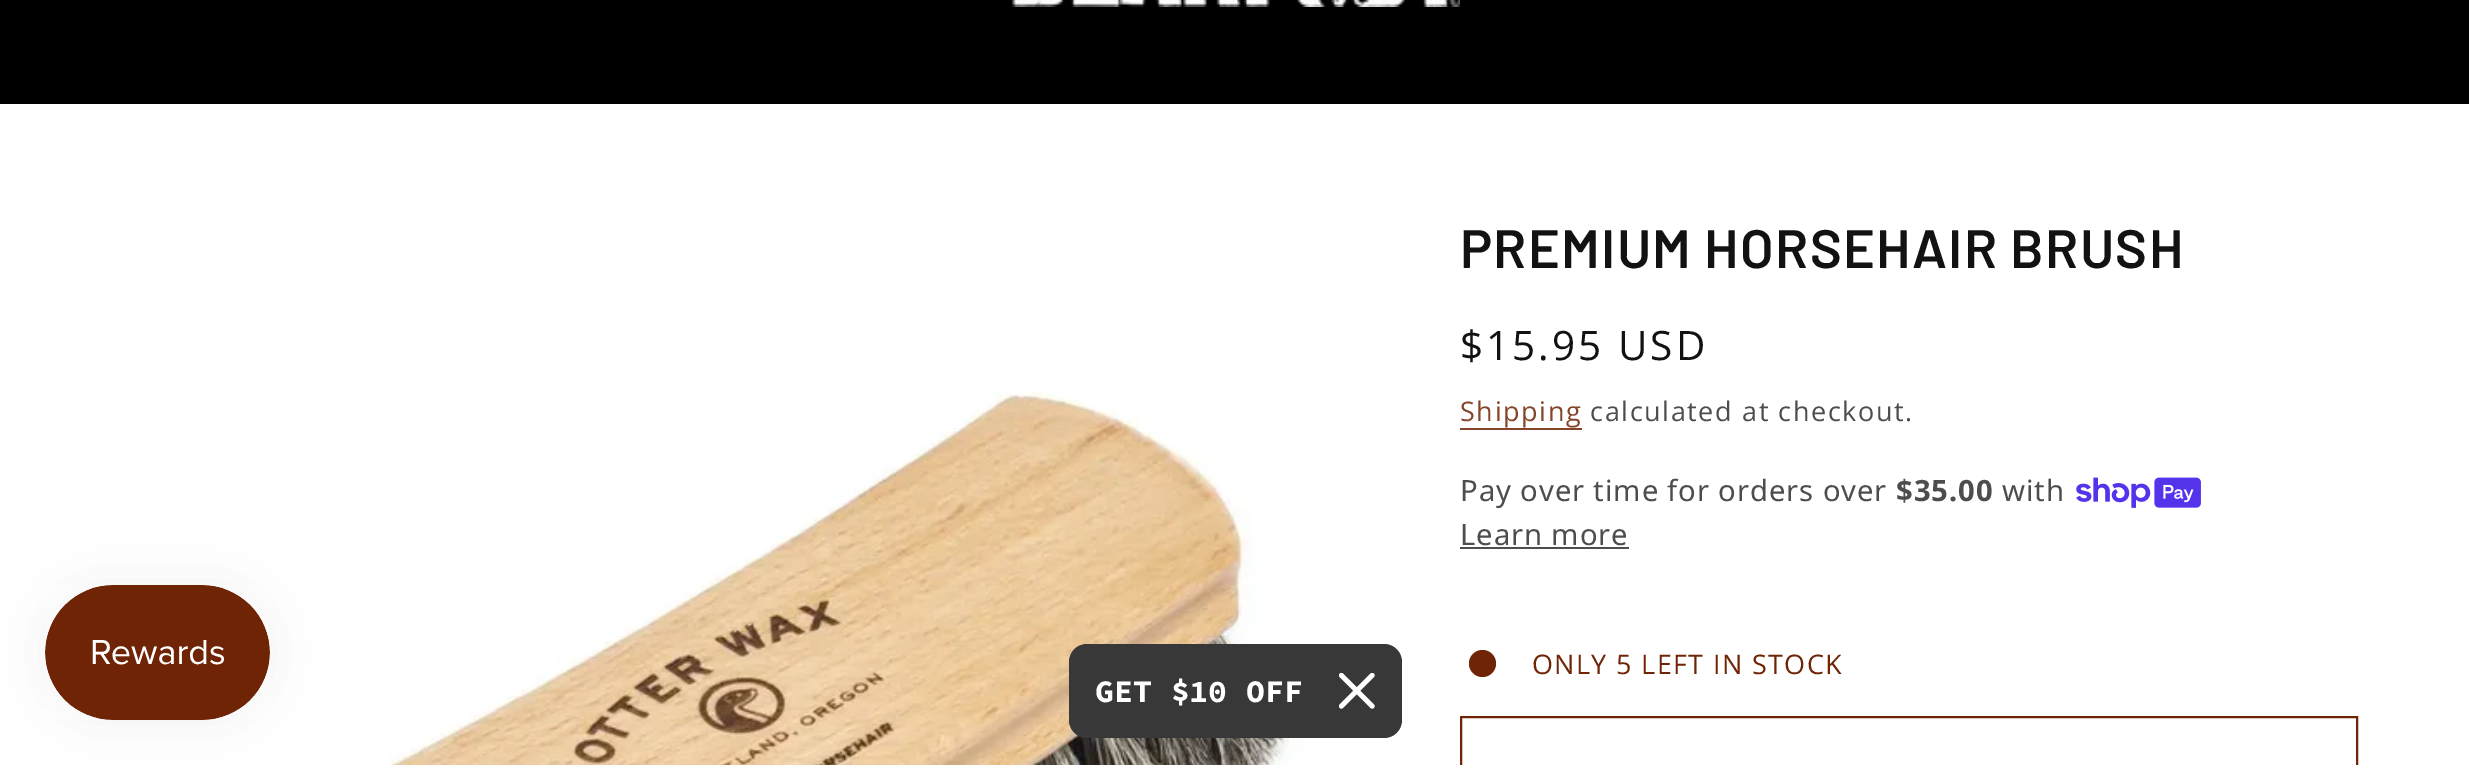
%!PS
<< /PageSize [2469 765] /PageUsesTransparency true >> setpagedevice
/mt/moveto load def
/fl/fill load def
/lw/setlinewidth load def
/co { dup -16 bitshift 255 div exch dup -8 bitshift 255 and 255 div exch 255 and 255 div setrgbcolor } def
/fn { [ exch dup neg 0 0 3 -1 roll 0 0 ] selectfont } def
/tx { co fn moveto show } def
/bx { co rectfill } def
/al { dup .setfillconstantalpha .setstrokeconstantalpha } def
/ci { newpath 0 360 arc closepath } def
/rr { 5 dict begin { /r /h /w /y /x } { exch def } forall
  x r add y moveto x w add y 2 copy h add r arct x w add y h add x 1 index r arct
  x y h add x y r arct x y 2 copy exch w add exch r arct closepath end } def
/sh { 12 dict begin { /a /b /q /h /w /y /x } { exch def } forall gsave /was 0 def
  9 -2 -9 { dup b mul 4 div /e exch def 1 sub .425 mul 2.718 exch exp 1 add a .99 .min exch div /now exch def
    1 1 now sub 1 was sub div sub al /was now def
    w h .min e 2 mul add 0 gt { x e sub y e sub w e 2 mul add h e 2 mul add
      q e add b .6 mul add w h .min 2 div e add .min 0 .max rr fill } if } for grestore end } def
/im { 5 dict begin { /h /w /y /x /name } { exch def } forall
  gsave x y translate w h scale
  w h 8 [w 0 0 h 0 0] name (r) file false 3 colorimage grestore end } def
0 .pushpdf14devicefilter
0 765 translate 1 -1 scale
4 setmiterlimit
0 0 2469 765 16#FFFFFF bx
0 0 2469 104 16#000000 bx
(media/1.raw) 1012 0 448 7 im
45 585 225 135 67.5 28 .05 sh
(media/2.raw) 45 585 225 135 im
(media/4.raw) 388 391 917 374 im
16#383838 co
1069 644 333 94 18 rr fl
(media/3.raw) 1339 673 36 36 im
1460 428 122 2 16#84452B bx
(media/5.raw) 2076 477 125 31 im
1460 547 169 2 16#4D4D4D bx
16#6E2405 co
1482.5 663.5 13.5 ci fl
2 lw
1461 717 896 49 rectstroke
(GET $10 OFF) 1095 702 /SourceCodePro-Bold 31.5 16#FFFFFF tx
/Barlow-SemiBold 54 fn
16#121212 co
1460 268 mt 1.35 0 (PREMIUM HORSEHAIR BRUSH) ashow
/OpenSans-Regular 40.5 fn
1460 360 mt 3 0 ($15.95 USD) ashow
/OpenSans-Regular 27 fn
16#84452B co
1460 421 mt 1.6 0 (Shipping) ashow
16#4D4D4D co
1590 421 mt 1.6 0 (calculated at checkout.) ashow
/NotoSans-Regular 29.25 fn
1460 501 mt .9 0 (Pay over time for orders over) ashow
/NotoSans-Bold 29.25 fn
1896 501 mt .9 0 ($35.00) ashow
/NotoSans-Regular 29.25 fn
2002 501 mt .9 0 (with) ashow
1460 545 mt .9 0 (Learn more) ashow
/OpenSans-Regular 27 fn
16#6E2405 co
1532 674 mt 1.35 0 (ONLY 5 LEFT IN STOCK) ashow
.poppdf14devicefilter showpage
